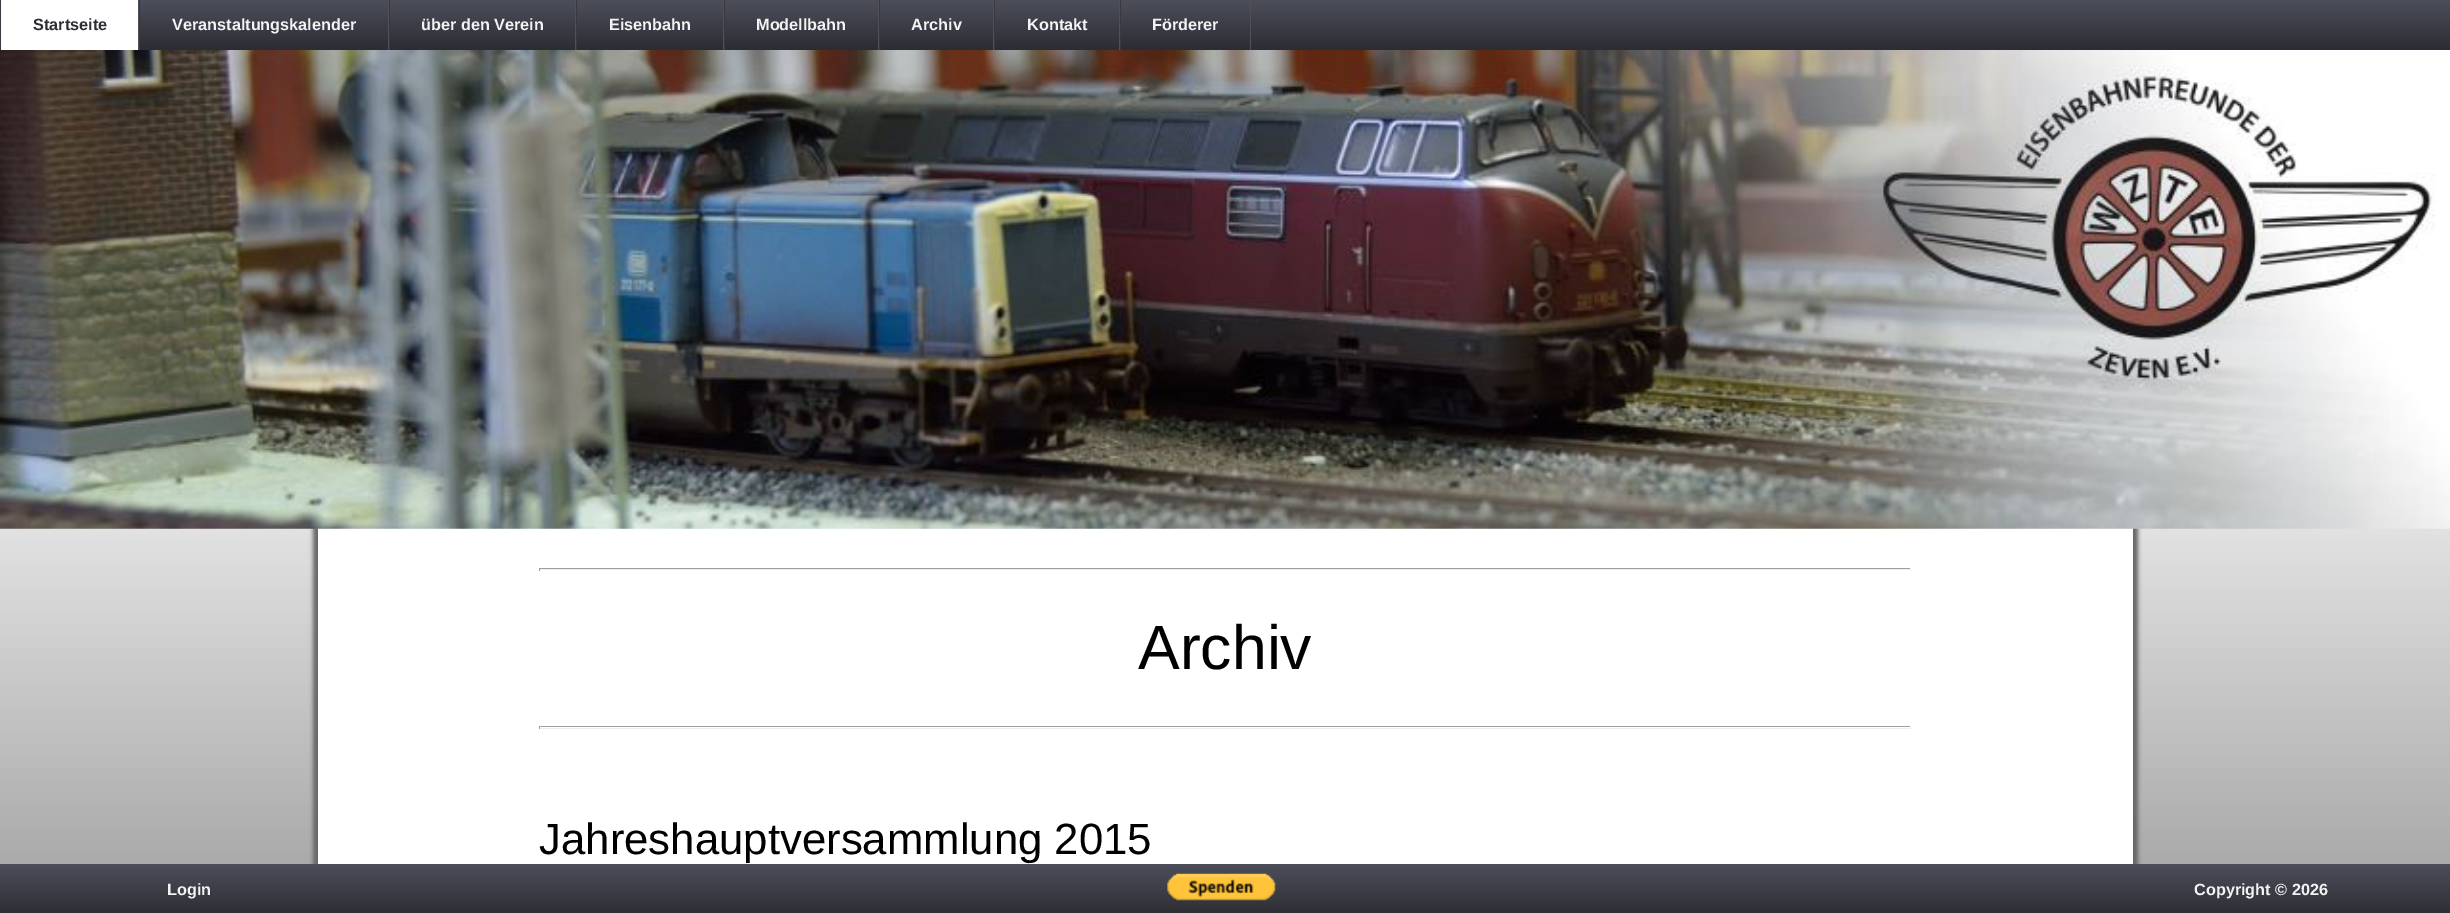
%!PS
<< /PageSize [2450 913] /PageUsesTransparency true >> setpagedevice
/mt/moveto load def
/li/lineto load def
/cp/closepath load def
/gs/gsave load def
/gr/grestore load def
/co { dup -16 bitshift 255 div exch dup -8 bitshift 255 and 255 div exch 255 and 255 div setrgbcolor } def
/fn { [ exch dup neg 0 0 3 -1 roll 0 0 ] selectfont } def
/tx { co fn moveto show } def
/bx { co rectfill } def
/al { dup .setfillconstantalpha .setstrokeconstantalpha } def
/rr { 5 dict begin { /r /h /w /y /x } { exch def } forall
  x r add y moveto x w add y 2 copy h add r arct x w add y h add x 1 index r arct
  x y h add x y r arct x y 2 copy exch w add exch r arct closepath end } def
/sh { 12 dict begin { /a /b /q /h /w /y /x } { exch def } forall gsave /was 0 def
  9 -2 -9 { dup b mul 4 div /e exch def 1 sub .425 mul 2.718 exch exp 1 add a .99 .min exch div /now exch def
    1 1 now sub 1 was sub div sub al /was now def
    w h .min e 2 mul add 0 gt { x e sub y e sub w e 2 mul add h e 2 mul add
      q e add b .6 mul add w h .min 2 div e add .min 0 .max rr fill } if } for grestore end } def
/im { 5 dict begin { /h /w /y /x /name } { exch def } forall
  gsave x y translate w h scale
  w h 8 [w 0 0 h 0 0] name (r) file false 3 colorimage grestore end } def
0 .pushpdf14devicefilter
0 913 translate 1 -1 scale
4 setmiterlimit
0 0 2450 913 16#FFFFFF bx
gs 140 0 mt 2450 0 li 2450 50 li 140 50 li cp clip newpath
<< /ShadingType 2 /ColorSpace /DeviceRGB /Coords [1225 0 1225 50] /Extend [true true] /Function << /FunctionType 2 /Domain [0 1] /C0 [.298 .306 .353] /C1 [.173 .176 .2] /N 1 >> >> shfill gr
138 0 1 50 16#4F5058 bx
0 0 1 50 16#393942 bx
388 0 1 50 16#4F5058 bx
139 0 1 50 16#393942 bx
575 0 1 50 16#4F5058 bx
389 0 1 50 16#393942 bx
723 0 1 50 16#4F5058 bx
576 0 1 50 16#393942 bx
878 0 1 50 16#4F5058 bx
724 0 1 50 16#393942 bx
993 0 1 50 16#4F5058 bx
879 0 1 50 16#393942 bx
1119 0 1 50 16#4F5058 bx
994 0 1 50 16#393942 bx
1250 0 1 50 16#4F5058 bx
1120 0 1 50 16#393942 bx
gs 0 528 mt 2450 528 li 2450 864 li 0 864 li cp clip newpath
<< /ShadingType 2 /ColorSpace /DeviceRGB /Coords [1225 50 1225 864] /Extend [true true] /Function << /FunctionType 3 /Domain [0 1] /Functions [<< /FunctionType 2 /Domain [0 1] /C0 [1 1 1] /C1 [.933 .933 .933] /N 1 >> << /FunctionType 2 /Domain [0 1] /C0 [.933 .933 .933] /C1 [.667 .667 .667] /N 1 >>] /Bounds [.5] /Encode [0 1 0 1] >> >> shfill gr
16#666666 co
313 526 1815 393 0 2 1 sh
323 526 1815 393 0 2 1 sh
318 528 1815 336 16#FFFFFF bx
(media/1.raw) 0 50 2450 479 im
539 568 1372 1 16#9F9F9F bx
1910 568 1 3 16#EEEEEE bx
539 569 1372 1 16#EEEEEE bx
539 568 1 3 16#9F9F9F bx
539 726 1372 1 16#9F9F9F bx
1910 726 1 3 16#EEEEEE bx
539 728 1372 1 16#EEEEEE bx
539 726 1 3 16#9F9F9F bx
gs 0 864 mt 2450 864 li 2450 913 li 0 913 li cp clip newpath
<< /ShadingType 2 /ColorSpace /DeviceRGB /Coords [1225 864 1225 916] /Extend [true true] /Function << /FunctionType 2 /Domain [0 1] /C0 [.298 .306 .353] /C1 [.173 .176 .2] /N 1 >> >> shfill gr
(media/2.raw) 1167 873 109 28 im
(Startseite) 33 30 /LiberationSans-Bold 16.25 16#2C2D33 tx
(Veranstaltungskalender) 172 30 /LiberationSans-Bold 16.25 16#F3F3F3 tx
(über den Verein) 421 30 /LiberationSans-Bold 16.25 16#F3F3F3 tx
(Eisenbahn) 609 30 /LiberationSans-Bold 16.25 16#F3F3F3 tx
(Modellbahn) 756 30 /LiberationSans-Bold 16.25 16#F3F3F3 tx
(Archiv) 911 30 /LiberationSans-Bold 16.25 16#F3F3F3 tx
(Kontakt) 1027 30 /LiberationSans-Bold 16.25 16#F3F3F3 tx
(Förderer) 1152 30 /LiberationSans-Bold 16.25 16#F3F3F3 tx
(Archiv) 1138 669 /LiberationSans-Regular 62.5 16#000000 tx
(Jahreshauptversammlung 2015) 539 854 /LiberationSans-Regular 43.75 16#000000 tx
(Login) 167 895 /LiberationSans-Bold 16.25 16#F3F3F3 tx
(Copyright © 2026) 2194 895 /LiberationSans-Bold 16.25 16#F3F3F3 tx
.poppdf14devicefilter showpage
